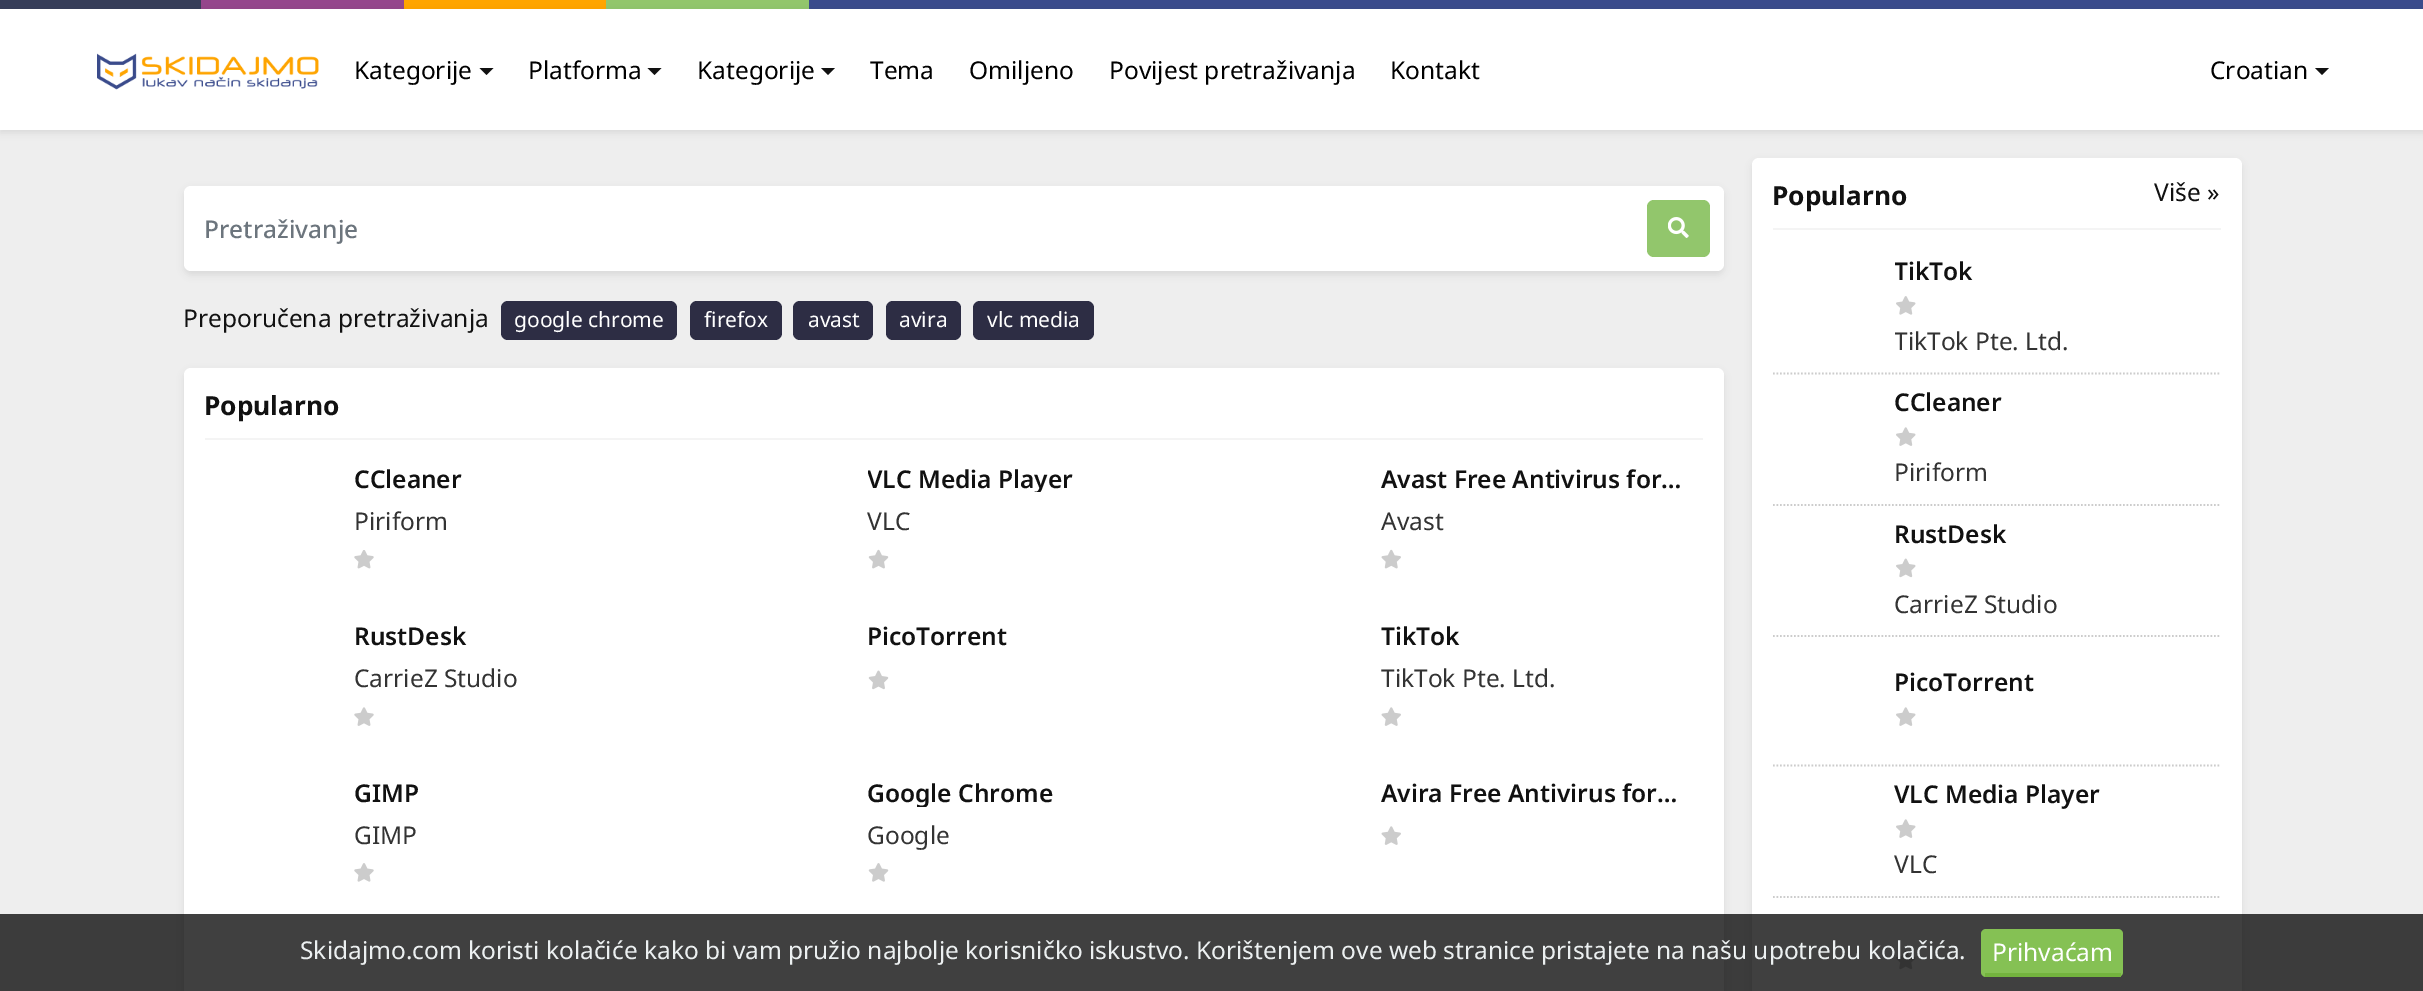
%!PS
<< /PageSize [2423 991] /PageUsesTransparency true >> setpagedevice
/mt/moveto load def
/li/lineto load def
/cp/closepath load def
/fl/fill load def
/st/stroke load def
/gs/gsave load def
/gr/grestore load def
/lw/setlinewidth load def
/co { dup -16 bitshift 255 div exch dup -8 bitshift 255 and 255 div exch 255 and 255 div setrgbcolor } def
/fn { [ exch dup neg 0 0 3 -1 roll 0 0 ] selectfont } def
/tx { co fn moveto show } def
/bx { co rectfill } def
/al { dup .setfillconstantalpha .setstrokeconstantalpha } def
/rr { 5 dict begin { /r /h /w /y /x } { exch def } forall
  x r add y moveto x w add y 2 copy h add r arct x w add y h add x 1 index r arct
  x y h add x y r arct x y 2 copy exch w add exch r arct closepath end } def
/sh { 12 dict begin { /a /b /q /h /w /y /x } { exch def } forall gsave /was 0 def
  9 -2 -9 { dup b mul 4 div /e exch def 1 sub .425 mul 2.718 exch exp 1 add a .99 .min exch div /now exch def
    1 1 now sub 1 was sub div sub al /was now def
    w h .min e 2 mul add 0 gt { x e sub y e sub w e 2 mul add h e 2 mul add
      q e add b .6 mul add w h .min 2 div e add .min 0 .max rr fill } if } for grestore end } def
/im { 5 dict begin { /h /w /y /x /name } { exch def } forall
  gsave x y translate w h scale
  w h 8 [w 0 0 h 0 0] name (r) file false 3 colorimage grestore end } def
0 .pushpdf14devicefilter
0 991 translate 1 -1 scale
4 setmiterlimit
0 0 2423 991 16#EEEEEE bx
0 0 201 9 16#373E59 bx
201 0 203 9 16#95468C bx
404 0 202 9 16#FFA500 bx
606 0 203 9 16#92C66C bx
809 0 1614 9 16#3A4B8C bx
16#000000 co
0 12 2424 121 0 3.5 .07 sh
0 9 2423 121 16#FFFFFF bx
(media/1.raw) 97 53 222 37 im
16#111111 co
479.5 68 mt 493.5 68 li 486.5 75 li cp fl
647.5 68 mt 661.5 68 li 654.5 75 li cp fl
821 68 mt 835 68 li 828 75 li cp fl
2315 68 mt 2329 68 li 2322 75 li cp fl
16#000000 co
184 189 1540 86 7 3.5 .07 sh
16#FFFFFF co
184 186 1540 85 7 rr fl
16#92C66C co
1647 200 63 57 7 rr fl
(media/2.raw) 1668 217 21 21 im
16#2D2D44 co
501 301 176 39 7 rr fl
690 301 92 39 7 rr fl
793 301 80 39 7 rr fl
886 301 75 39 7 rr fl
973 301 121 39 7 rr fl
16#000000 co
184 371 1540 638 7 3.5 .07 sh
16#FFFFFF co
184 368 1540 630 7 rr fl
205 438 1498 2 16#F4F4F4 bx
(media/3.raw) 354 550 20 19 im
(media/4.raw) 868 549 21 20 im
(media/5.raw) 1381 549 20 20 im
(media/6.raw) 354 707 20 19 im
(media/7.raw) 868 670 21 20 im
(media/8.raw) 1381 707 20 19 im
(media/9.raw) 354 863 20 19 im
(media/10.raw) 868 863 21 19 im
(media/8.raw) 1381 826 20 19 im
16#000000 co
1752 161 490 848 7 3.5 .07 sh
16#FFFFFF co
1752 158 490 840 7 rr fl
1773 228 448 2 16#F4F4F4 bx
(media/11.raw) 1896 296 20 19 im
16#CCCCCC co
1.8 lw
[1.75 1.75] 0 setdash
1773 373.5 mt 2221 373.5 li st
(media/12.raw) 1896 427 20 19 im
1773 505 mt 2221 505 li st
(media/13.raw) 1896 558 20 20 im
1773 636 mt 2221 636 li st
(media/12.raw) 1896 707 20 19 im
1773 765.5 mt 2221 765.5 li st
(media/12.raw) 1896 819 20 19 im
1773 897 mt 2221 897 li st
(media/13.raw) 1896 950 20 20 im
0.75 al
0 914 2423 77 16#000000 bx
1 al
16#85C154 co
1981 929 142 48 5 rr fl
1985 973 136 4 16#73B33E bx
(Kategorije) 354 79 /NotoSans-Regular 24.5 16#000000 tx
(Platforma) 528 79 /NotoSans-Regular 24.5 16#000000 tx
(Kategorije) 697 79 /NotoSans-Regular 24.5 16#000000 tx
(Tema) 870 79 /NotoSans-Regular 24.5 16#000000 tx
(Omiljeno) 969 79 /NotoSans-Regular 24.5 16#000000 tx
(Povijest pretraživanja) 1109 79 /NotoSans-Regular 24.5 16#000000 tx
(Kontakt) 1390 79 /NotoSans-Regular 24.5 16#000000 tx
(Croatian) 2210 79 /NotoSans-Regular 24.5 16#000000 tx
(Pretraživanje) 204 238 /NotoSans-Medium 24.5 16#6C757D tx
(Preporučena pretraživanja) 183 327 /NotoSans-Regular 24.5 16#111111 tx
(google chrome) 514 327 /NotoSans-Regular 21 16#FFFFFF tx
(firefox) 704 327 /NotoSans-Regular 21 16#FFFFFF tx
(avast) 808 327 /NotoSans-Regular 21 16#FFFFFF tx
(avira) 899 327 /NotoSans-Regular 21 16#FFFFFF tx
(vlc media) 987 327 /NotoSans-Regular 21 16#FFFFFF tx
(Popularno) 204 415 /NotoSans-Bold 26.25 16#111111 tx
(CCleaner) 354 488 /NotoSans-SemiBold 24.5 16#111111 tx
(Piriform) 354 530 /NotoSans-Regular 24.5 16#333333 tx
gs
868 466 320 26 rectclip
(VLC Media Player) 867 488 /NotoSans-SemiBold 24.5 16#111111 tx
gr
(VLC) 867 530 /NotoSans-Regular 24.5 16#333333 tx
(Avast Free Antivirus for…) 1381 488 /NotoSans-SemiBold 24.5 16#111111 tx
(Avast) 1381 530 /NotoSans-Regular 24.5 16#333333 tx
(RustDesk) 354 645 /NotoSans-SemiBold 24.5 16#111111 tx
(CarrieZ Studio) 354 687 /NotoSans-Regular 24.5 16#333333 tx
(PicoTorrent) 867 645 /NotoSans-SemiBold 24.5 16#111111 tx
(TikTok) 1381 645 /NotoSans-SemiBold 24.5 16#111111 tx
gs
1381 660 320 37 rectclip
(TikTok Pte. Ltd.) 1381 687 /NotoSans-Regular 24.5 16#333333 tx
gr
(GIMP) 354 802 /NotoSans-SemiBold 24.5 16#111111 tx
(GIMP) 354 844 /NotoSans-Regular 24.5 16#333333 tx
gs
868 781 320 26 rectclip
(Google Chrome) 867 802 /NotoSans-SemiBold 24.5 16#111111 tx
gr
(Google) 867 844 /NotoSans-Regular 24.5 16#333333 tx
(Avira Free Antivirus for…) 1381 802 /NotoSans-SemiBold 24.5 16#111111 tx
(Popularno) 1772 205 /NotoSans-Bold 26.25 16#111111 tx
(Više ») 2154 201 /NotoSans-Regular 24.5 16#111111 tx
gs
1895 256 326 29 rectclip
(TikTok) 1894 280 /NotoSans-SemiBold 24.5 16#111111 tx
gr
gs
1895 322 326 37 rectclip
(TikTok Pte. Ltd.) 1894 350 /NotoSans-Regular 24.5 16#333333 tx
gr
(CCleaner) 1894 411 /NotoSans-SemiBold 24.5 16#111111 tx
(Piriform) 1894 481 /NotoSans-Regular 24.5 16#333333 tx
(RustDesk) 1894 543 /NotoSans-SemiBold 24.5 16#111111 tx
(CarrieZ Studio) 1894 613 /NotoSans-Regular 24.5 16#333333 tx
(PicoTorrent) 1894 691 /NotoSans-SemiBold 24.5 16#111111 tx
(VLC Media Player) 1894 803 /NotoSans-SemiBold 24.5 16#111111 tx
(VLC) 1894 873 /NotoSans-Regular 24.5 16#333333 tx
(Skidajmo.com koristi kolačiće kako bi vam pružio najbolje korisničko iskustvo. Korištenjem ove web stranice pristajete na našu upotrebu kolačića.) 300 959 /NotoSans-Regular 24.5 16#ECF0F1 tx
(Prihvaćam) 1992 961 /NotoSans-Regular 24.5 16#FFFFFF tx
.poppdf14devicefilter showpage
